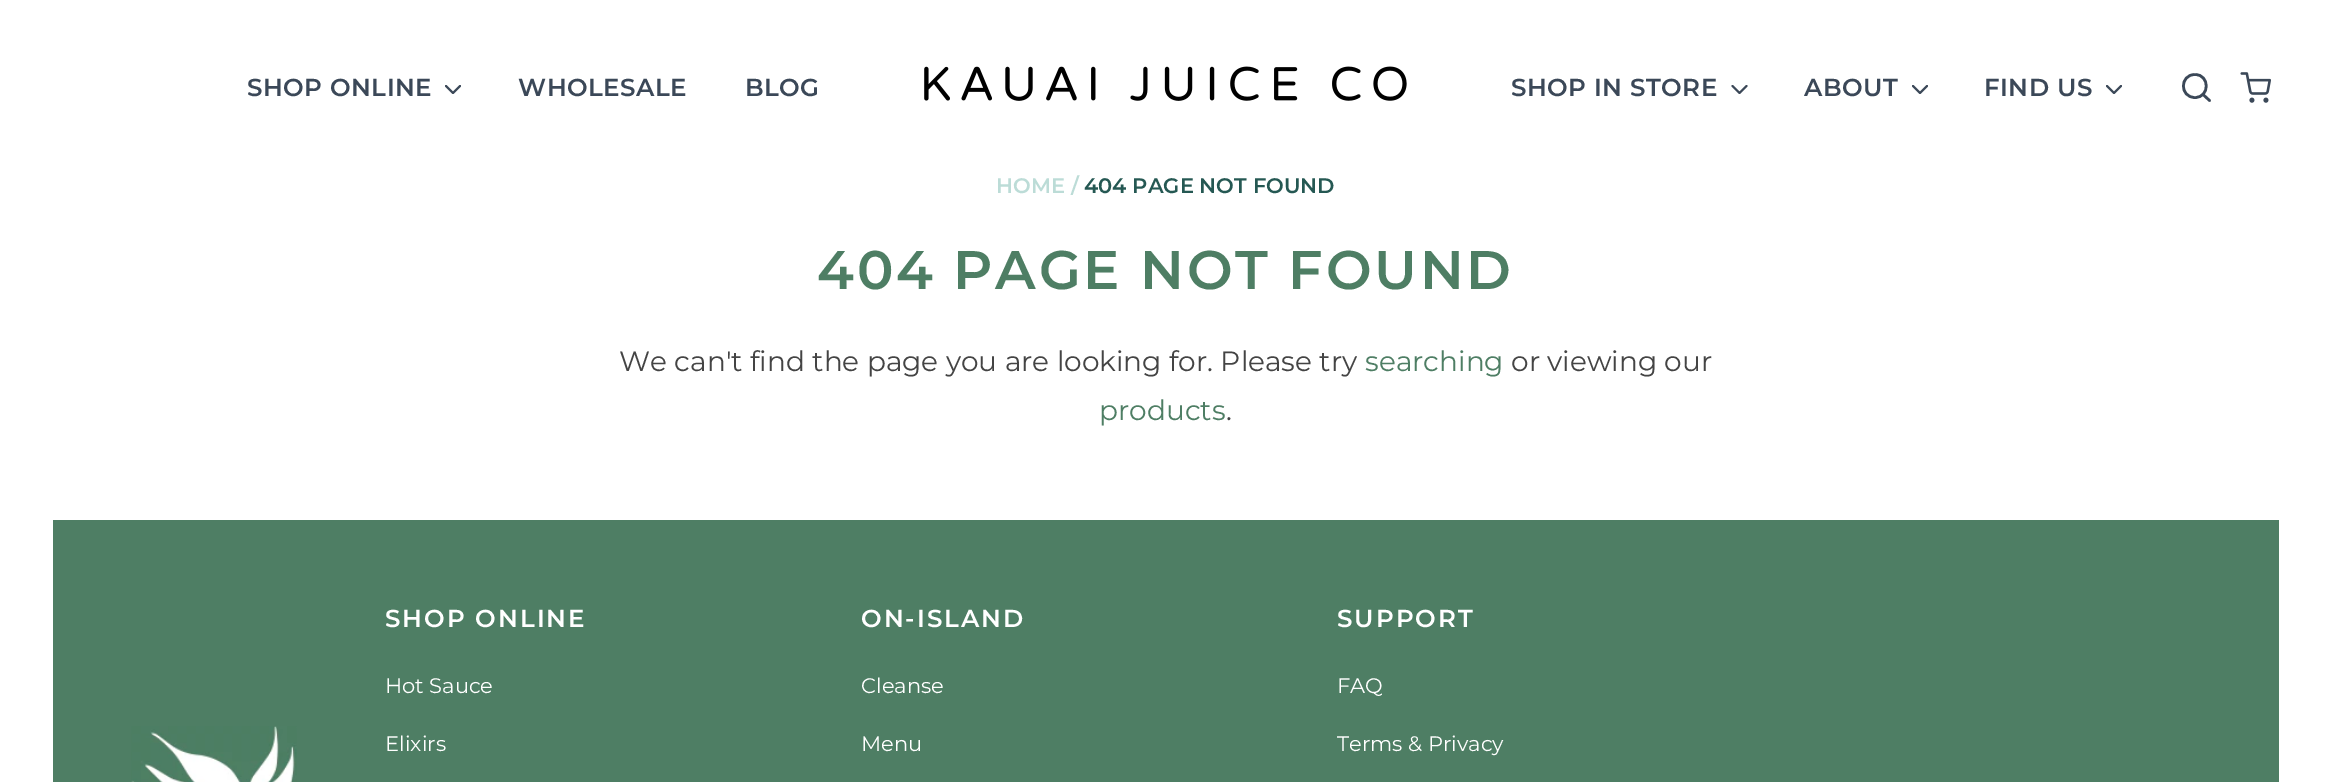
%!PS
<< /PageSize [2330 782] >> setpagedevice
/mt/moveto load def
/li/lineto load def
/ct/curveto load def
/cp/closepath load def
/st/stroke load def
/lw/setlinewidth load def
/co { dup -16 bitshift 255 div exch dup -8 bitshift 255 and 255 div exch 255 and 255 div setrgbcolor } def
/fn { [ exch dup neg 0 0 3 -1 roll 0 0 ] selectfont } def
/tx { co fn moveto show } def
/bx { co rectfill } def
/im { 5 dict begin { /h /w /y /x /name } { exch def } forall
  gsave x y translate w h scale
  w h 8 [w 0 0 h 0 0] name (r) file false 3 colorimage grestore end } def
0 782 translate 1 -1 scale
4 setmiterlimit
0 0 2330 782 16#FFFFFF bx
(media/1.raw) 924 66 483 35 im
16#3B4858 co
2.6 lw
1 setlinecap
1 setlinejoin
2195 74.5 mt 2179.5 74.5 2179.5 97.5 2195 97.5 ct 2210 97.5 2210 74.5 2195 74.5 ct cp 2209.5 100.5 mt 2203 94.5 li cp st
(media/2.raw) 2240 72 31 31 im
2.1 lw
446 86 mt 453 93 li 460 86 li st
1732.5 86 mt 1739.5 93 li 1746.5 86 li st
1913 86 mt 1920 93 li 1927 86 li st
2107 86 mt 2114 93 li 2121 86 li st
53 520 2226 262 16#4E7E64 bx
(media/3.raw) 131 726 166 56 im
/Montserrat-SemiBold 24.5 fn
16#3B4858 co
247 96 mt .5 0 (SHOP ONLINE) ashow
518 96 mt .5 0 (WHOLESALE) ashow
745 96 mt .5 0 (BLOG) ashow
1511 96 mt .5 0 (SHOP IN STORE) ashow
1804 96 mt .5 0 (ABOUT) ashow
1984 96 mt .5 0 (FIND US) ashow
(HOME /) 996 193 /Montserrat-SemiBold 21 16#BCDCD7 tx
(404 PAGE NOT FOUND) 1084 193 /Montserrat-SemiBold 21 16#255853 tx
/Montserrat-SemiBold 54.25 fn
16#4E7E64 co
817 289 mt 2.75 0 (404 PAGE NOT FOUND) ashow
(We can't find the page you are looking for. Please try) 619 371 /Montserrat-Regular 28 16#444444 tx
(searching) 1365 371 /Montserrat-Regular 28 16#4E7E64 tx
(or viewing our) 1511 371 /Montserrat-Regular 28 16#444444 tx
(products) 1099 420 /Montserrat-Regular 28 16#4E7E64 tx
(.) 1226 420 /Montserrat-Regular 28 16#444444 tx
/Montserrat-SemiBold 24.5 fn
16#FFFFFF co
385 627 mt 2 0 (SHOP ONLINE) ashow
(Hot Sauce) 385 693 /Montserrat-Regular 21 16#FFFFFF tx
(Elixirs) 385 751 /Montserrat-Regular 21 16#FFFFFF tx
/Montserrat-SemiBold 24.5 fn
861 627 mt 2 0 (ON-ISLAND) ashow
(Cleanse) 861 693 /Montserrat-Regular 21 16#FFFFFF tx
(Menu) 861 751 /Montserrat-Regular 21 16#FFFFFF tx
/Montserrat-SemiBold 24.5 fn
1337 627 mt 2 0 (SUPPORT) ashow
(FAQ) 1337 693 /Montserrat-Regular 21 16#FFFFFF tx
(Terms & Privacy) 1337 751 /Montserrat-Regular 21 16#FFFFFF tx
showpage
